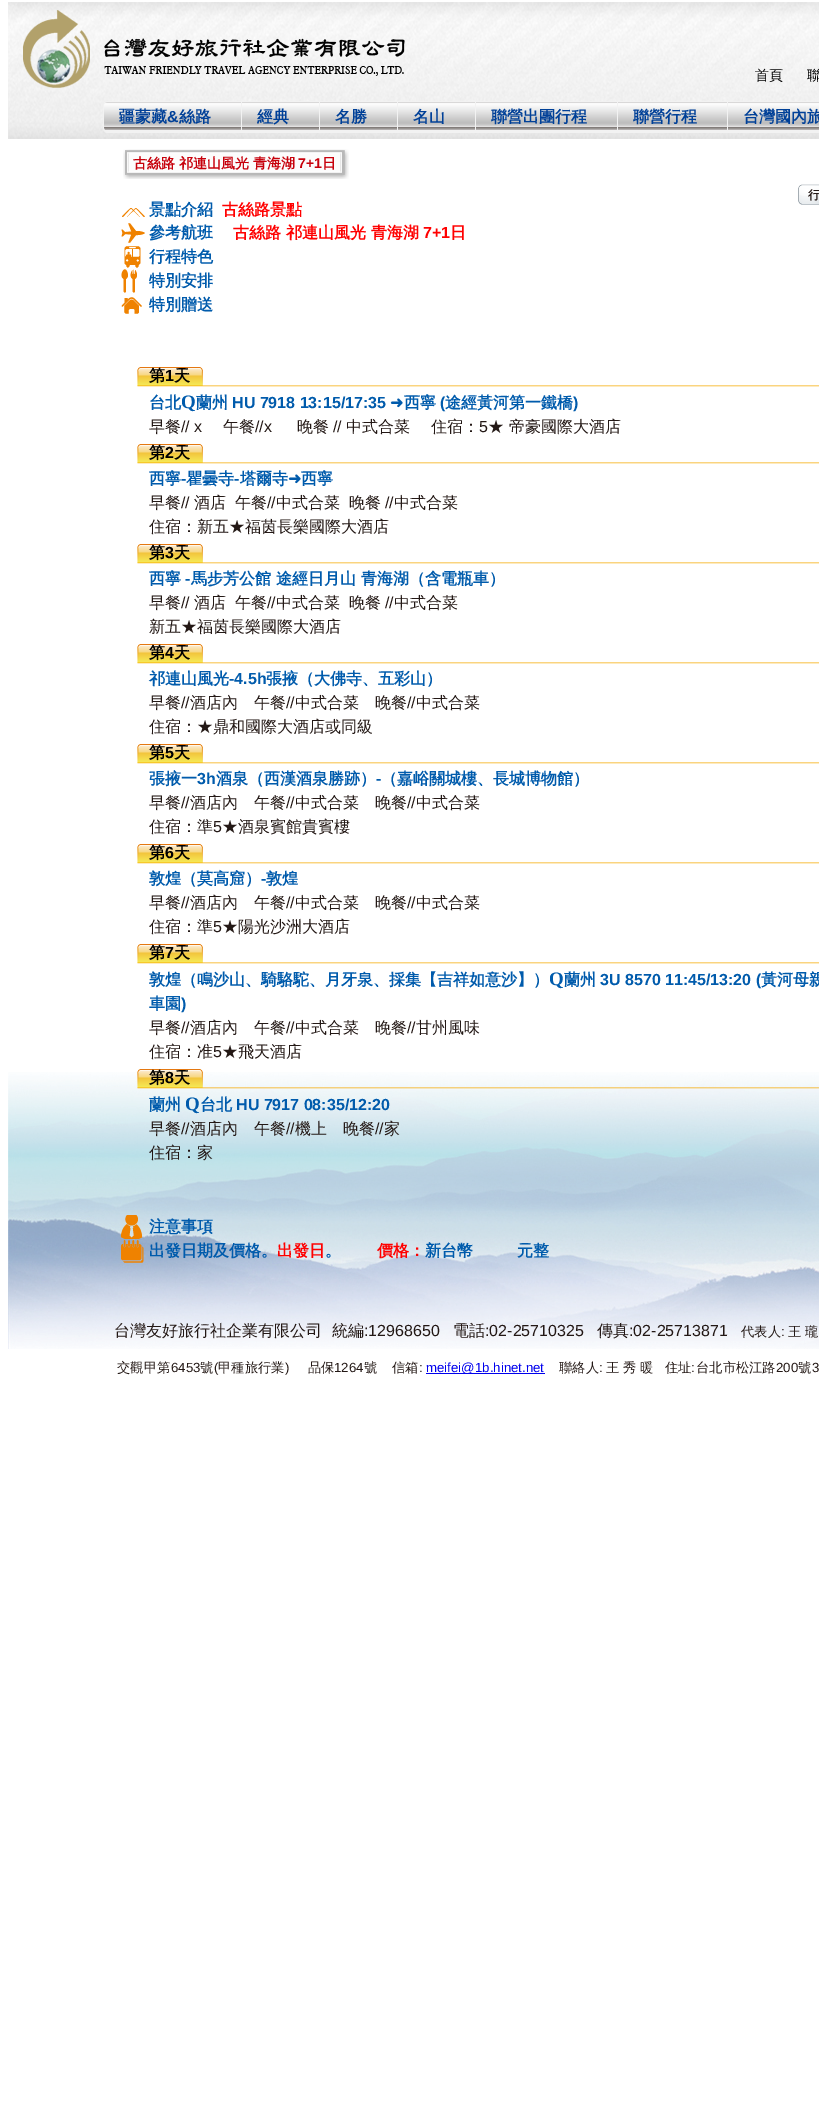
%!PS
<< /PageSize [819 2101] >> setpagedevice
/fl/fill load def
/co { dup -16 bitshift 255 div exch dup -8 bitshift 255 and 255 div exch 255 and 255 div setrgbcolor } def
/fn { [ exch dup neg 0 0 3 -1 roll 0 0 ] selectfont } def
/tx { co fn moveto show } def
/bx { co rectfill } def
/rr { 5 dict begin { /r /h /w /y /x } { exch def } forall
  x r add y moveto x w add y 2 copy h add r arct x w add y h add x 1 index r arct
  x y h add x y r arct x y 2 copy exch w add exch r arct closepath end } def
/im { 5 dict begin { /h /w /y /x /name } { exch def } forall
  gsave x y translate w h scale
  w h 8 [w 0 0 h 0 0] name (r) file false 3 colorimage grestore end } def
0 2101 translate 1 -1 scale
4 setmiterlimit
0 0 819 2101 16#FFFFFF bx
(media/1.raw) 8 2 811 137 im
(media/2.raw) 23 10 382 78 im
16#F2F2F2 co
103 101 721 32 5 rr fl
(media/3.raw) 104 102 137 28 im
(media/4.raw) 242 102 77 28 im
(media/4.raw) 320 102 77 28 im
(media/4.raw) 398 102 77 28 im
(media/5.raw) 476 102 141 28 im
(media/6.raw) 618 102 109 28 im
(media/7.raw) 728 102 91 28 im
(media/8.raw) 8 1072 811 277 im
(media/9.raw) 123 149 6 30 im
(media/10.raw) 129 149 211 30 im
(media/11.raw) 340 149 9 30 im
(media/12.raw) 798 184 21 21 im
(media/13.raw) 122 208 23 9 im
(media/14.raw) 121 223 24 20 im
(media/15.raw) 124 246 17 22 im
(media/16.raw) 121 269 16 24 im
(media/17.raw) 121 297 21 17 im
(media/18.raw) 137 367 682 20 im
(media/18.raw) 137 444 682 20 im
(media/18.raw) 137 544 682 20 im
(media/18.raw) 137 644 682 20 im
(media/18.raw) 137 744 682 20 im
(media/18.raw) 137 844 682 20 im
(media/18.raw) 137 944 682 20 im
(media/19.raw) 137 1069 682 20 im
(media/20.raw) 121 1215 22 24 im
(media/21.raw) 121 1240 23 23 im
426 1373 119 1 16#0000EE bx
(首頁) 755 80 /WenQuanYiZenHei-Medium 14 16#000000 tx
(聯) 807 80 /WenQuanYiZenHei-Medium 14 16#000000 tx
(疆蒙藏) 119 122 /WenQuanYiZenHei-Bold 16 16#004098 tx
(&) 167 122 /LiberationSans-Bold 16 16#004098 tx
(絲路) 179 122 /WenQuanYiZenHei-Bold 16 16#004098 tx
(經典) 257 122 /WenQuanYiZenHei-Bold 16 16#004098 tx
(名勝) 335 122 /WenQuanYiZenHei-Bold 16 16#004098 tx
(名山) 413 122 /WenQuanYiZenHei-Bold 16 16#004098 tx
(聯營出團行程) 491 122 /WenQuanYiZenHei-Bold 16 16#004098 tx
(聯營行程) 633 122 /WenQuanYiZenHei-Bold 16 16#004098 tx
(台灣國內旅) 743 122 /WenQuanYiZenHei-Bold 16 16#004098 tx
(古絲路 祁連山風光 青海湖) 133 168 /WenQuanYiZenHei-Bold 14 16#C7000B tx
(7+1) 298 168 /LiberationSans-Bold 14 16#C7000B tx
(日) 322 168 /WenQuanYiZenHei-Bold 14 16#C7000B tx
(行) 808 199 /WenQuanYiZenHei-Bold 12 16#231815 tx
(景點介紹) 149 215 /WenQuanYiZenHei-Bold 16 16#005BAC tx
(古絲路景點) 222 215 /WenQuanYiZenHei-Bold 16 16#FF0000 tx
(參考航班) 149 238 /WenQuanYiZenHei-Bold 16 16#005BAC tx
(古絲路 祁連山風光 青海湖) 233 238 /WenQuanYiZenHei-Bold 16 16#FF0000 tx
(7+1) 423 238 /LiberationSans-Bold 16 16#FF0000 tx
(日) 450 238 /WenQuanYiZenHei-Bold 16 16#FF0000 tx
(行程特色) 149 262 /WenQuanYiZenHei-Bold 16 16#005BAC tx
(特別安排) 149 286 /WenQuanYiZenHei-Bold 16 16#005BAC tx
(特別贈送) 149 310 /WenQuanYiZenHei-Bold 16 16#005BAC tx
(第) 149 381 /WenQuanYiZenHei-Bold 16 16#000000 tx
(1) 165 381 /LiberationSans-Bold 16 16#000000 tx
(天) 174 381 /WenQuanYiZenHei-Bold 16 16#000000 tx
(台北) 149 408 /WenQuanYiZenHei-Bold 16 16#005BAC tx
(Q) 181 408 /LiberationSerif-Bold 19 16#005BAC tx
(蘭州) 196 408 /WenQuanYiZenHei-Bold 16 16#005BAC tx
(HU 7918 13:15/17:35) 232 408 /LiberationSans-Bold 16 16#005BAC tx
(➜) 390 408 /DejaVuSans-Bold 16 16#005BAC tx
(西寧) 404 408 /WenQuanYiZenHei-Bold 16 16#005BAC tx
(\() 440 408 /LiberationSans-Bold 16 16#005BAC tx
(途經黃河第一鐵橋) 445 408 /WenQuanYiZenHei-Bold 16 16#005BAC tx
(\)) 573 408 /LiberationSans-Bold 16 16#005BAC tx
(早餐) 149 432 /WenQuanYiZenHei-Medium 16 16#231815 tx
(// x) 181 432 /LiberationSans-Regular 16 16#231815 tx
(午餐) 223 432 /WenQuanYiZenHei-Medium 16 16#231815 tx
(//x) 255 432 /LiberationSans-Regular 16 16#231815 tx
(晚餐) 297 432 /WenQuanYiZenHei-Medium 16 16#231815 tx
(//) 333 432 /LiberationSans-Regular 16 16#231815 tx
(中式合菜) 346 432 /WenQuanYiZenHei-Medium 16 16#231815 tx
(住宿：) 431 432 /WenQuanYiZenHei-Medium 16 16#231815 tx
(5) 479 432 /LiberationSans-Regular 16 16#231815 tx
(★ 帝豪國際大酒店) 488 432 /WenQuanYiZenHei-Medium 16 16#231815 tx
(第) 149 458 /WenQuanYiZenHei-Bold 16 16#000000 tx
(2) 165 458 /LiberationSans-Bold 16 16#000000 tx
(天) 174 458 /WenQuanYiZenHei-Bold 16 16#000000 tx
(西寧) 149 484 /WenQuanYiZenHei-Bold 16 16#005BAC tx
(-) 181 484 /LiberationSans-Bold 16 16#005BAC tx
(瞿曇寺) 186 484 /WenQuanYiZenHei-Bold 16 16#005BAC tx
(-) 234 484 /LiberationSans-Bold 16 16#005BAC tx
(塔爾寺) 240 484 /WenQuanYiZenHei-Bold 16 16#005BAC tx
(➜) 288 484 /DejaVuSans-Bold 16 16#005BAC tx
(西寧) 301 484 /WenQuanYiZenHei-Bold 16 16#005BAC tx
(早餐) 149 508 /WenQuanYiZenHei-Medium 16 16#231815 tx
(//) 181 508 /LiberationSans-Regular 16 16#231815 tx
(酒店) 194 508 /WenQuanYiZenHei-Medium 16 16#231815 tx
(午餐) 235 508 /WenQuanYiZenHei-Medium 16 16#231815 tx
(//) 267 508 /LiberationSans-Regular 16 16#231815 tx
(中式合菜) 276 508 /WenQuanYiZenHei-Medium 16 16#231815 tx
(晚餐) 349 508 /WenQuanYiZenHei-Medium 16 16#231815 tx
(//) 385 508 /LiberationSans-Regular 16 16#231815 tx
(中式合菜) 394 508 /WenQuanYiZenHei-Medium 16 16#231815 tx
(住宿：新五★福茵長樂國際大酒店) 149 532 /WenQuanYiZenHei-Medium 16 16#231815 tx
(第) 149 558 /WenQuanYiZenHei-Bold 16 16#000000 tx
(3) 165 558 /LiberationSans-Bold 16 16#000000 tx
(天) 174 558 /WenQuanYiZenHei-Bold 16 16#000000 tx
(西寧) 149 584 /WenQuanYiZenHei-Bold 16 16#005BAC tx
(-) 185 584 /LiberationSans-Bold 16 16#005BAC tx
(馬步芳公館 途經日月山 青海湖（含電瓶車）) 191 584 /WenQuanYiZenHei-Bold 16 16#005BAC tx
(早餐) 149 608 /WenQuanYiZenHei-Medium 16 16#231815 tx
(//) 181 608 /LiberationSans-Regular 16 16#231815 tx
(酒店) 194 608 /WenQuanYiZenHei-Medium 16 16#231815 tx
(午餐) 235 608 /WenQuanYiZenHei-Medium 16 16#231815 tx
(//) 267 608 /LiberationSans-Regular 16 16#231815 tx
(中式合菜) 276 608 /WenQuanYiZenHei-Medium 16 16#231815 tx
(晚餐) 349 608 /WenQuanYiZenHei-Medium 16 16#231815 tx
(//) 385 608 /LiberationSans-Regular 16 16#231815 tx
(中式合菜) 394 608 /WenQuanYiZenHei-Medium 16 16#231815 tx
(新五★福茵長樂國際大酒店) 149 632 /WenQuanYiZenHei-Medium 16 16#231815 tx
(第) 149 658 /WenQuanYiZenHei-Bold 16 16#000000 tx
(4) 165 658 /LiberationSans-Bold 16 16#000000 tx
(天) 174 658 /WenQuanYiZenHei-Bold 16 16#000000 tx
(祁連山風光) 149 684 /WenQuanYiZenHei-Bold 16 16#005BAC tx
(-4.5h) 229 684 /LiberationSans-Bold 16 16#005BAC tx
(張掖（大佛寺、五彩山）) 266 684 /WenQuanYiZenHei-Bold 16 16#005BAC tx
(早餐) 149 708 /WenQuanYiZenHei-Medium 16 16#231815 tx
(//) 181 708 /LiberationSans-Regular 16 16#231815 tx
(酒店內　午餐) 190 708 /WenQuanYiZenHei-Medium 16 16#231815 tx
(//) 286 708 /LiberationSans-Regular 16 16#231815 tx
(中式合菜　晚餐) 295 708 /WenQuanYiZenHei-Medium 16 16#231815 tx
(//) 407 708 /LiberationSans-Regular 16 16#231815 tx
(中式合菜) 416 708 /WenQuanYiZenHei-Medium 16 16#231815 tx
(住宿：★鼎和國際大酒店或同級) 149 732 /WenQuanYiZenHei-Medium 16 16#231815 tx
(第) 149 758 /WenQuanYiZenHei-Bold 16 16#000000 tx
(5) 165 758 /LiberationSans-Bold 16 16#000000 tx
(天) 174 758 /WenQuanYiZenHei-Bold 16 16#000000 tx
(張掖一) 149 784 /WenQuanYiZenHei-Bold 16 16#005BAC tx
(3h) 197 784 /LiberationSans-Bold 16 16#005BAC tx
(酒泉（西漢酒泉勝跡）) 216 784 /WenQuanYiZenHei-Bold 16 16#005BAC tx
(-) 376 784 /LiberationSans-Bold 16 16#005BAC tx
(（嘉峪關城樓、長城博物館）) 381 784 /WenQuanYiZenHei-Bold 16 16#005BAC tx
(早餐) 149 808 /WenQuanYiZenHei-Medium 16 16#231815 tx
(//) 181 808 /LiberationSans-Regular 16 16#231815 tx
(酒店內　午餐) 190 808 /WenQuanYiZenHei-Medium 16 16#231815 tx
(//) 286 808 /LiberationSans-Regular 16 16#231815 tx
(中式合菜　晚餐) 295 808 /WenQuanYiZenHei-Medium 16 16#231815 tx
(//) 407 808 /LiberationSans-Regular 16 16#231815 tx
(中式合菜) 416 808 /WenQuanYiZenHei-Medium 16 16#231815 tx
(住宿：準) 149 832 /WenQuanYiZenHei-Medium 16 16#231815 tx
(5) 213 832 /LiberationSans-Regular 16 16#231815 tx
(★酒泉賓館貴賓樓) 222 832 /WenQuanYiZenHei-Medium 16 16#231815 tx
(第) 149 858 /WenQuanYiZenHei-Bold 16 16#000000 tx
(6) 165 858 /LiberationSans-Bold 16 16#000000 tx
(天) 174 858 /WenQuanYiZenHei-Bold 16 16#000000 tx
(敦煌（莫高窟）) 149 884 /WenQuanYiZenHei-Bold 16 16#005BAC tx
(-) 261 884 /LiberationSans-Bold 16 16#005BAC tx
(敦煌) 266 884 /WenQuanYiZenHei-Bold 16 16#005BAC tx
(早餐) 149 908 /WenQuanYiZenHei-Medium 16 16#231815 tx
(//) 181 908 /LiberationSans-Regular 16 16#231815 tx
(酒店內　午餐) 190 908 /WenQuanYiZenHei-Medium 16 16#231815 tx
(//) 286 908 /LiberationSans-Regular 16 16#231815 tx
(中式合菜　晚餐) 295 908 /WenQuanYiZenHei-Medium 16 16#231815 tx
(//) 407 908 /LiberationSans-Regular 16 16#231815 tx
(中式合菜) 416 908 /WenQuanYiZenHei-Medium 16 16#231815 tx
(住宿：準) 149 932 /WenQuanYiZenHei-Medium 16 16#231815 tx
(5) 213 932 /LiberationSans-Regular 16 16#231815 tx
(★陽光沙洲大酒店) 222 932 /WenQuanYiZenHei-Medium 16 16#231815 tx
(第) 149 958 /WenQuanYiZenHei-Bold 16 16#000000 tx
(7) 165 958 /LiberationSans-Bold 16 16#000000 tx
(天) 174 958 /WenQuanYiZenHei-Bold 16 16#000000 tx
(敦煌（鳴沙山、騎駱駝、月牙泉、採集【吉祥如意沙】）) 149 985 /WenQuanYiZenHei-Bold 16 16#005BAC tx
(Q) 549 985 /LiberationSerif-Bold 19 16#005BAC tx
(蘭州) 564 985 /WenQuanYiZenHei-Bold 16 16#005BAC tx
(3U 8570 11:45/13:20 \() 600 985 /LiberationSans-Bold 16 16#005BAC tx
(黃河母親) 761 985 /WenQuanYiZenHei-Bold 16 16#005BAC tx
(車園) 149 1009 /WenQuanYiZenHei-Bold 16 16#005BAC tx
(\)) 181 1009 /LiberationSans-Bold 16 16#005BAC tx
(早餐) 149 1033 /WenQuanYiZenHei-Medium 16 16#231815 tx
(//) 181 1033 /LiberationSans-Regular 16 16#231815 tx
(酒店內　午餐) 190 1033 /WenQuanYiZenHei-Medium 16 16#231815 tx
(//) 286 1033 /LiberationSans-Regular 16 16#231815 tx
(中式合菜　晚餐) 295 1033 /WenQuanYiZenHei-Medium 16 16#231815 tx
(//) 407 1033 /LiberationSans-Regular 16 16#231815 tx
(甘州風味) 416 1033 /WenQuanYiZenHei-Medium 16 16#231815 tx
(住宿：准) 149 1057 /WenQuanYiZenHei-Medium 16 16#231815 tx
(5) 213 1057 /LiberationSans-Regular 16 16#231815 tx
(★飛天酒店) 222 1057 /WenQuanYiZenHei-Medium 16 16#231815 tx
(第) 149 1083 /WenQuanYiZenHei-Bold 16 16#000000 tx
(8) 165 1083 /LiberationSans-Bold 16 16#000000 tx
(天) 174 1083 /WenQuanYiZenHei-Bold 16 16#000000 tx
(蘭州) 149 1110 /WenQuanYiZenHei-Bold 16 16#005BAC tx
(Q) 185 1110 /LiberationSerif-Bold 19 16#005BAC tx
(台北) 200 1110 /WenQuanYiZenHei-Bold 16 16#005BAC tx
(HU 7917 08:35/12:20) 236 1110 /LiberationSans-Bold 16 16#005BAC tx
(早餐) 149 1134 /WenQuanYiZenHei-Medium 16 16#231815 tx
(//) 181 1134 /LiberationSans-Regular 16 16#231815 tx
(酒店內　午餐) 190 1134 /WenQuanYiZenHei-Medium 16 16#231815 tx
(//) 286 1134 /LiberationSans-Regular 16 16#231815 tx
(機上　晚餐) 295 1134 /WenQuanYiZenHei-Medium 16 16#231815 tx
(//) 375 1134 /LiberationSans-Regular 16 16#231815 tx
(家) 384 1134 /WenQuanYiZenHei-Medium 16 16#231815 tx
(住宿：家) 149 1158 /WenQuanYiZenHei-Medium 16 16#231815 tx
(注意事項) 149 1232 /WenQuanYiZenHei-Bold 16 16#005BAC tx
(出發日期及價格。) 149 1256 /WenQuanYiZenHei-Bold 16 16#005BAC tx
(出發日) 277 1256 /WenQuanYiZenHei-Bold 16 16#FF0000 tx
(。) 325 1256 /WenQuanYiZenHei-Bold 16 16#005BAC tx
(價格：) 377 1256 /WenQuanYiZenHei-Bold 16 16#FF0000 tx
(新台幣) 425 1256 /WenQuanYiZenHei-Bold 16 16#005BAC tx
(元整) 517 1256 /WenQuanYiZenHei-Bold 16 16#005BAC tx
(台灣友好旅行社企業有限公司) 114 1336 /WenQuanYiZenHei-Medium 16 16#231815 tx
(統編) 332 1336 /WenQuanYiZenHei-Medium 16 16#231815 tx
(:12968650) 364 1336 /LiberationSans-Regular 16 16#231815 tx
(電話) 453 1336 /WenQuanYiZenHei-Medium 16 16#231815 tx
(:02-25710325) 485 1336 /LiberationSans-Regular 16 16#231815 tx
(傳真) 597 1336 /WenQuanYiZenHei-Medium 16 16#231815 tx
(:02-25713871) 629 1336 /LiberationSans-Regular 16 16#231815 tx
(代表人) 741 1336 /WenQuanYiZenHei-Medium 13.25 16#231815 tx
(:) 781 1336 /LiberationSans-Regular 13.25 16#231815 tx
(王 瓏) 788 1336 /WenQuanYiZenHei-Medium 13.25 16#231815 tx
(交觀甲第) 117 1372 /WenQuanYiZenHei-Medium 13.25 16#231815 tx
(6453) 171 1372 /LiberationSans-Regular 13.25 16#231815 tx
(號) 200 1372 /WenQuanYiZenHei-Medium 13.25 16#231815 tx
(\() 214 1372 /LiberationSans-Regular 13.25 16#231815 tx
(甲種旅行業) 218 1372 /WenQuanYiZenHei-Medium 13.25 16#231815 tx
(\)) 285 1372 /LiberationSans-Regular 13.25 16#231815 tx
(品保) 308 1372 /WenQuanYiZenHei-Medium 13.25 16#231815 tx
(1264) 334 1372 /LiberationSans-Regular 13.25 16#231815 tx
(號) 364 1372 /WenQuanYiZenHei-Medium 13.25 16#231815 tx
(信箱) 392 1372 /WenQuanYiZenHei-Medium 13.25 16#231815 tx
(:) 419 1372 /LiberationSans-Regular 13.25 16#231815 tx
(meifei@1b.hinet.net) 426 1372 /LiberationSans-Regular 13.25 16#0000EE tx
(聯絡人) 559 1372 /WenQuanYiZenHei-Medium 13.25 16#231815 tx
(:) 599 1372 /LiberationSans-Regular 13.25 16#231815 tx
(王 秀 暖) 606 1372 /WenQuanYiZenHei-Medium 13.25 16#231815 tx
(住址) 665 1372 /WenQuanYiZenHei-Medium 13.25 16#231815 tx
(:) 691 1372 /LiberationSans-Regular 13.25 16#231815 tx
(台北市松江路) 696 1372 /WenQuanYiZenHei-Medium 13.25 16#231815 tx
(200) 776 1372 /LiberationSans-Regular 13.25 16#231815 tx
(號) 798 1372 /WenQuanYiZenHei-Medium 13.25 16#231815 tx
(3) 812 1372 /LiberationSans-Regular 13.25 16#231815 tx
showpage
